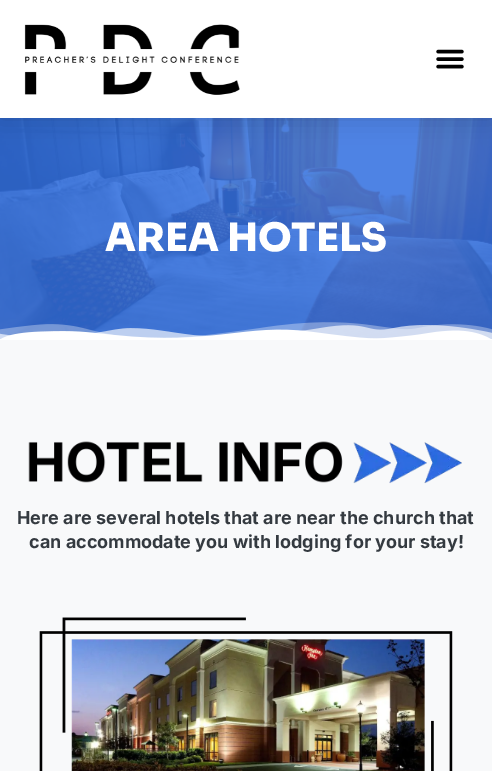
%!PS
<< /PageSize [492 771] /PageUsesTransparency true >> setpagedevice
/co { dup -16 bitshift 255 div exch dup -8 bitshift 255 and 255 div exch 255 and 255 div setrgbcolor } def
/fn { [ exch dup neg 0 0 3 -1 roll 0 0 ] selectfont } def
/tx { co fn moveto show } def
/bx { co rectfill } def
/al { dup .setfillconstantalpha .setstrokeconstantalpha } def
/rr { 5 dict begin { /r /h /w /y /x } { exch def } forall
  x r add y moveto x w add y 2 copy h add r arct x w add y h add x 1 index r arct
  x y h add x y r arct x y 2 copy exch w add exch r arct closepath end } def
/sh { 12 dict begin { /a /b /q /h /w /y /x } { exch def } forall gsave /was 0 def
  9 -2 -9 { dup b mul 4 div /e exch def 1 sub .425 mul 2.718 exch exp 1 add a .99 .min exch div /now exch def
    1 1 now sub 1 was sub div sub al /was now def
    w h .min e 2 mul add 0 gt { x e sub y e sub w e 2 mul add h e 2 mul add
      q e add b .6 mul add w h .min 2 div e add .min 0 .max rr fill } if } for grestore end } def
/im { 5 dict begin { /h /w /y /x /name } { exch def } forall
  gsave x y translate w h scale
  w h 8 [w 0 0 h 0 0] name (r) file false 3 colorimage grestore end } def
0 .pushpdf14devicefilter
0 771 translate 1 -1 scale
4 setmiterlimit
0 0 492 771 16#F8F9FA bx
(media/3.raw) 0 118 492 221 im
16#000000 co
0 0 492 118 0 12 .15 sh
0 0 492 118 16#FFFFFF bx
(media/1.raw) 24 24 216 71 im
(media/2.raw) 436 49 28 20 im
(media/4.raw) 0 322 492 18 im
(media/5.raw) 28 441 434 43 im
(media/6.raw) 39 617 414 154 im
(AREA HOTELS) 105 251 /Sora-ExtraBold 39 16#FFFFFF tx
(Here are several hotels that are near the church that) 17 524 /Inter-Bold 18 16#343A40 tx
(can accommodate you with lodging for your stay!) 29 548 /Inter-Bold 18 16#343A40 tx
.poppdf14devicefilter showpage
